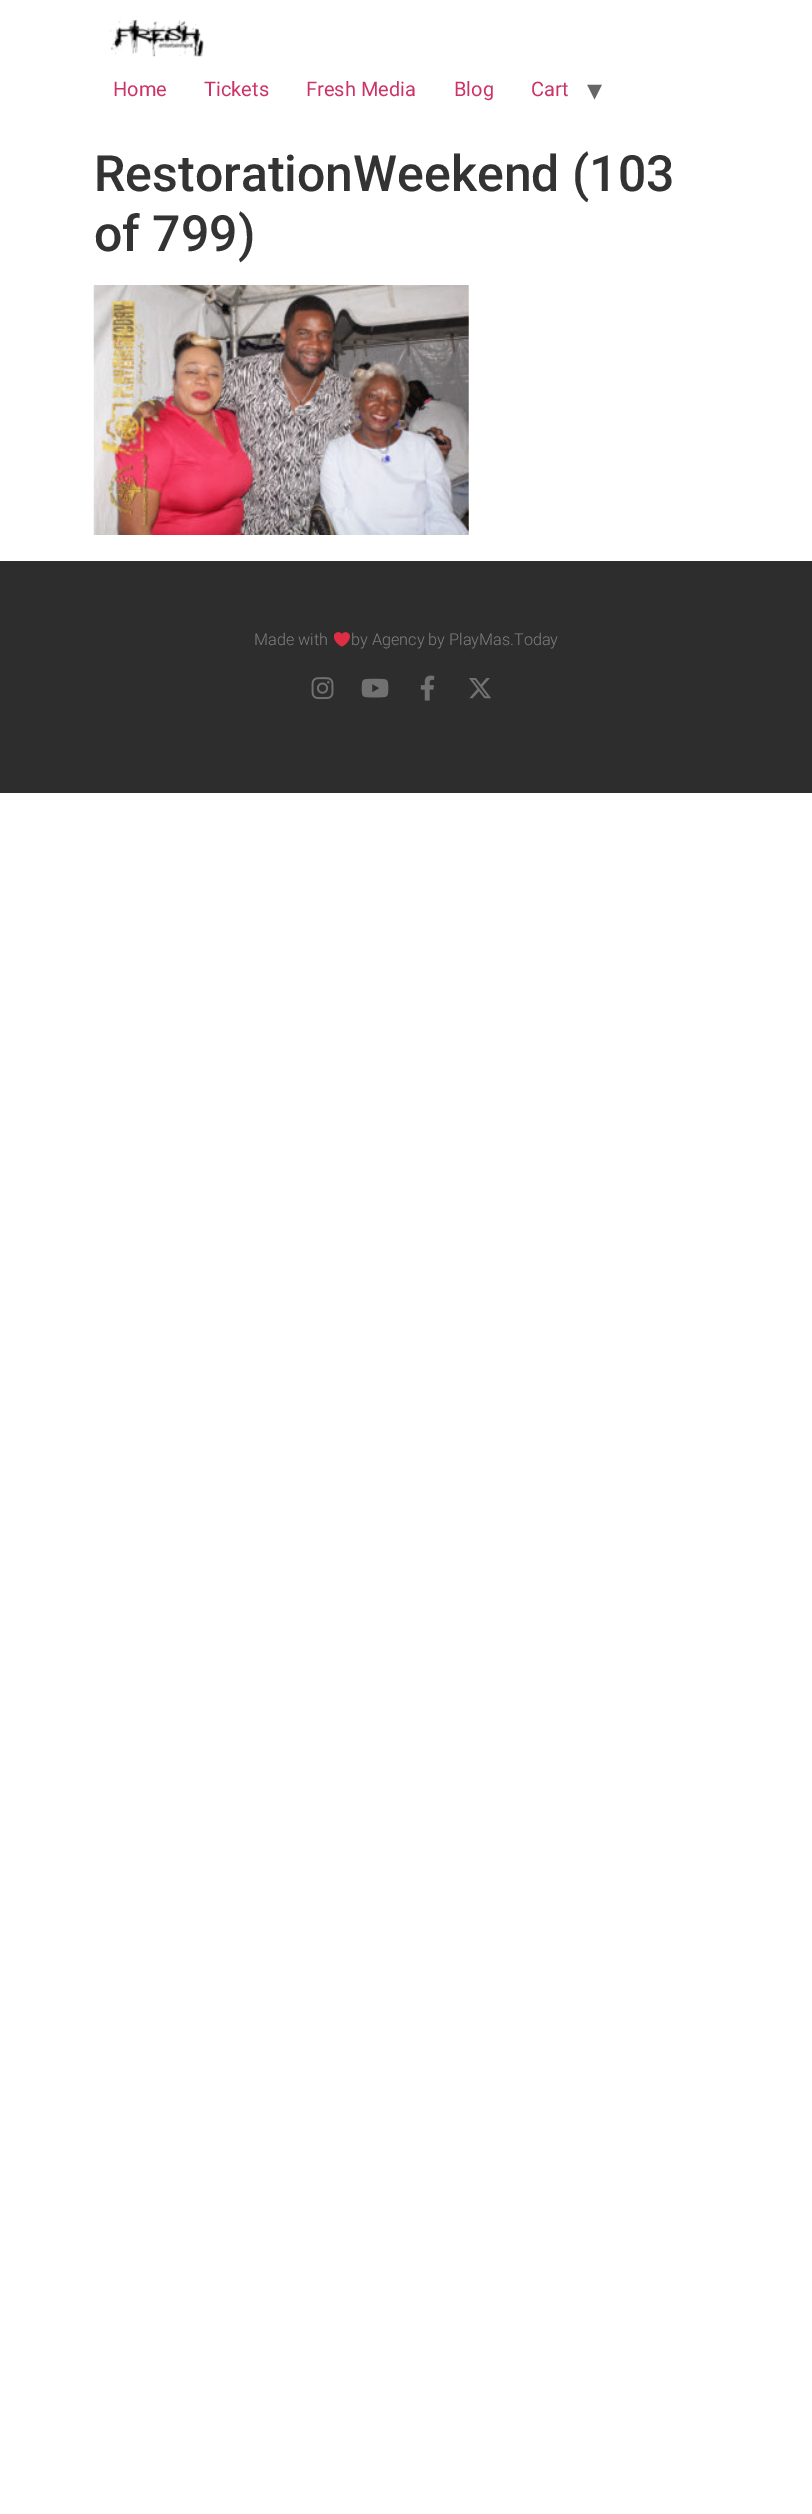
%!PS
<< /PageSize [812 2514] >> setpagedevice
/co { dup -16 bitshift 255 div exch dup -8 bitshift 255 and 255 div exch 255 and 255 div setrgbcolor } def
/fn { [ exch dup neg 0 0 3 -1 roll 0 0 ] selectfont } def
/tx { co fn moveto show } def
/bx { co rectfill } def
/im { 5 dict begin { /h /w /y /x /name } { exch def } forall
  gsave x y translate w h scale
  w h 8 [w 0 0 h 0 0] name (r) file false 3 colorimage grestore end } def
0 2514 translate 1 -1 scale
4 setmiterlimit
0 0 812 2514 16#FFFFFF bx
(media/1.raw) 110 20 94 37 im
(media/2.raw) 93 285 376 250 im
0 561 812 232 16#2D2D2D bx
(media/3.raw) 334 632 16 15 im
(media/4.raw) 311 677 23 22 im
(media/5.raw) 361 678 28 20 im
(media/6.raw) 420 675 15 26 im
(media/7.raw) 469 678 22 21 im
(Home) 113 96 /Roboto-Regular 20 16#CC3366 tx
(Tickets) 204 96 /Roboto-Regular 20 16#CC3366 tx
(Fresh Media) 306 96 /Roboto-Regular 20 16#CC3366 tx
(Blog) 454 96 /Roboto-Regular 20 16#CC3366 tx
(Cart) 531 96 /Roboto-Regular 20 16#CC3366 tx
(▾) 587 100 /DejaVuSans-Regular 30 16#666666 tx
(RestorationWeekend \(103) 94 191 /Roboto-Medium 50 16#333333 tx
(of 799\)) 94 251 /Roboto-Medium 50 16#333333 tx
(Made with) 254 645 /Roboto-Light 16.25 16#7F7F7F tx
(by Agency by PlayMas.Today) 351 645 /Roboto-Light 16.25 16#7F7F7F tx
showpage
